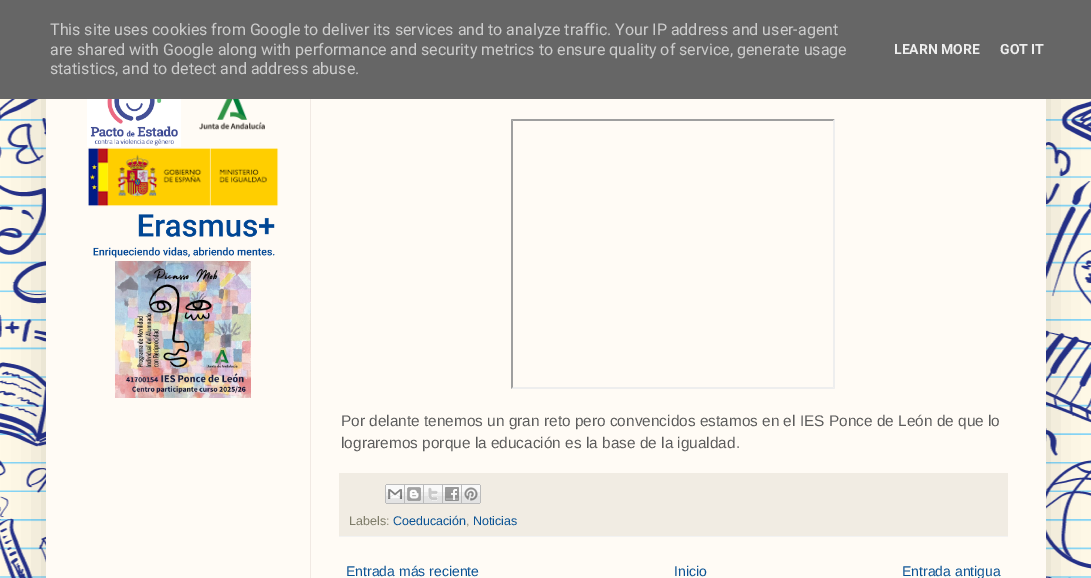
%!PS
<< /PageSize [1091 578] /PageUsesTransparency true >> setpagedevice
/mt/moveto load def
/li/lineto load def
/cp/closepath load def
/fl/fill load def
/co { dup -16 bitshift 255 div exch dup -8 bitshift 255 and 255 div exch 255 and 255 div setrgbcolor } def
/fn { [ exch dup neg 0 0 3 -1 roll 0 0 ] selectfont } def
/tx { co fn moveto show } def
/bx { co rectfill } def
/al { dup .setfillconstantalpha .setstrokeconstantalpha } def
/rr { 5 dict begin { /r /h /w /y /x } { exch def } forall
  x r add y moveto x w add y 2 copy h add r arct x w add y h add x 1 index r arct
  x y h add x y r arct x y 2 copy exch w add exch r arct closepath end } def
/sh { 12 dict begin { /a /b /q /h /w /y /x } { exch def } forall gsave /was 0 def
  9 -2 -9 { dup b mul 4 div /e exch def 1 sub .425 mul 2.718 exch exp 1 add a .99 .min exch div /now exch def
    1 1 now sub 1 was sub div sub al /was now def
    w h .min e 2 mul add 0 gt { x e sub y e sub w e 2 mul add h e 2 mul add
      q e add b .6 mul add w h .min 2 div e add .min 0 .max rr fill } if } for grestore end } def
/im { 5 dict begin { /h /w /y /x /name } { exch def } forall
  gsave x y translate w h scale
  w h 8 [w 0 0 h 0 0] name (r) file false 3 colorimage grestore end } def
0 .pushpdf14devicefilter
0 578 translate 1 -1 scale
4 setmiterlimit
0 0 1091 578 16#FFFFFF bx
(media/1.raw) 0 99 1091 479 im
16#000000 co
46 -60 1000 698 0 20 .15 sh
0 0 1091 99 16#666666 bx
46 99 1000 479 16#FFFBF5 bx
310 99 1 479 16#F1E9E3 bx
(media/2.raw) 87 99 94 48 im
(media/3.raw) 199 99 66 31 im
(media/4.raw) 88 148 191 59 im
(media/5.raw) 93 214 182 44 im
(media/6.raw) 115 261 136 137 im
16#9F9F9F co
511 119 mt 835 119 li 833 121 li 513 121 li cp fl
16#EEEEEE co
835 119 mt 835 389 li 833 387 li 833 121 li cp fl
835 389 mt 511 389 li 513 387 li 833 387 li cp fl
16#9F9F9F co
511 389 mt 511 119 li 513 121 li 513 387 li cp fl
339 473 669 63 16#F1ECE3 bx
339 536 669 1 16#F2F2F2 bx
(media/7.raw) 385 484 20 20 im
(media/8.raw) 405 484 19 20 im
(media/9.raw) 424 484 19 20 im
(media/10.raw) 443 484 19 20 im
(media/11.raw) 462 484 19 20 im
(This site uses cookies from Google to deliver its services and to analyze traffic. Your IP address and user-agent) 50 35 /Roboto-Regular 16 16#CCCCCC tx
(are shared with Google along with performance and security metrics to ensure quality of service, generate usage) 50 55 /Roboto-Regular 16 16#CCCCCC tx
(statistics, and to detect and address abuse.) 50 74 /Roboto-Regular 16 16#CCCCCC tx
(LEARN MORE) 894 54 /Roboto-Bold 14 16#EEEEEE tx
(GOT IT) 1000 54 /Roboto-Bold 14 16#EEEEEE tx
(Por delante tenemos un gran reto pero convencidos estamos en el IES Ponce de León de que lo) 341 426 /LiberationSans-Regular 15.4 16#5C5C5C tx
(lograremos porque la educación es la base de la igualdad.) 341 448 /LiberationSans-Regular 15.4 16#5C5C5C tx
(Labels:) 349 525 /LiberationSans-Regular 12.5 16#7E7C69 tx
(Coeducación) 393 525 /LiberationSans-Regular 12.5 16#0B5394 tx
(,) 466 525 /LiberationSans-Regular 12.5 16#7E7C69 tx
(Noticias) 473 525 /LiberationSans-Regular 12.5 16#0B5394 tx
(Entrada más reciente) 346 576 /LiberationSans-Regular 14 16#0B5394 tx
(Inicio) 674 576 /LiberationSans-Regular 14 16#0B5394 tx
(Entrada antigua) 902 576 /LiberationSans-Regular 14 16#0B5394 tx
.poppdf14devicefilter showpage
